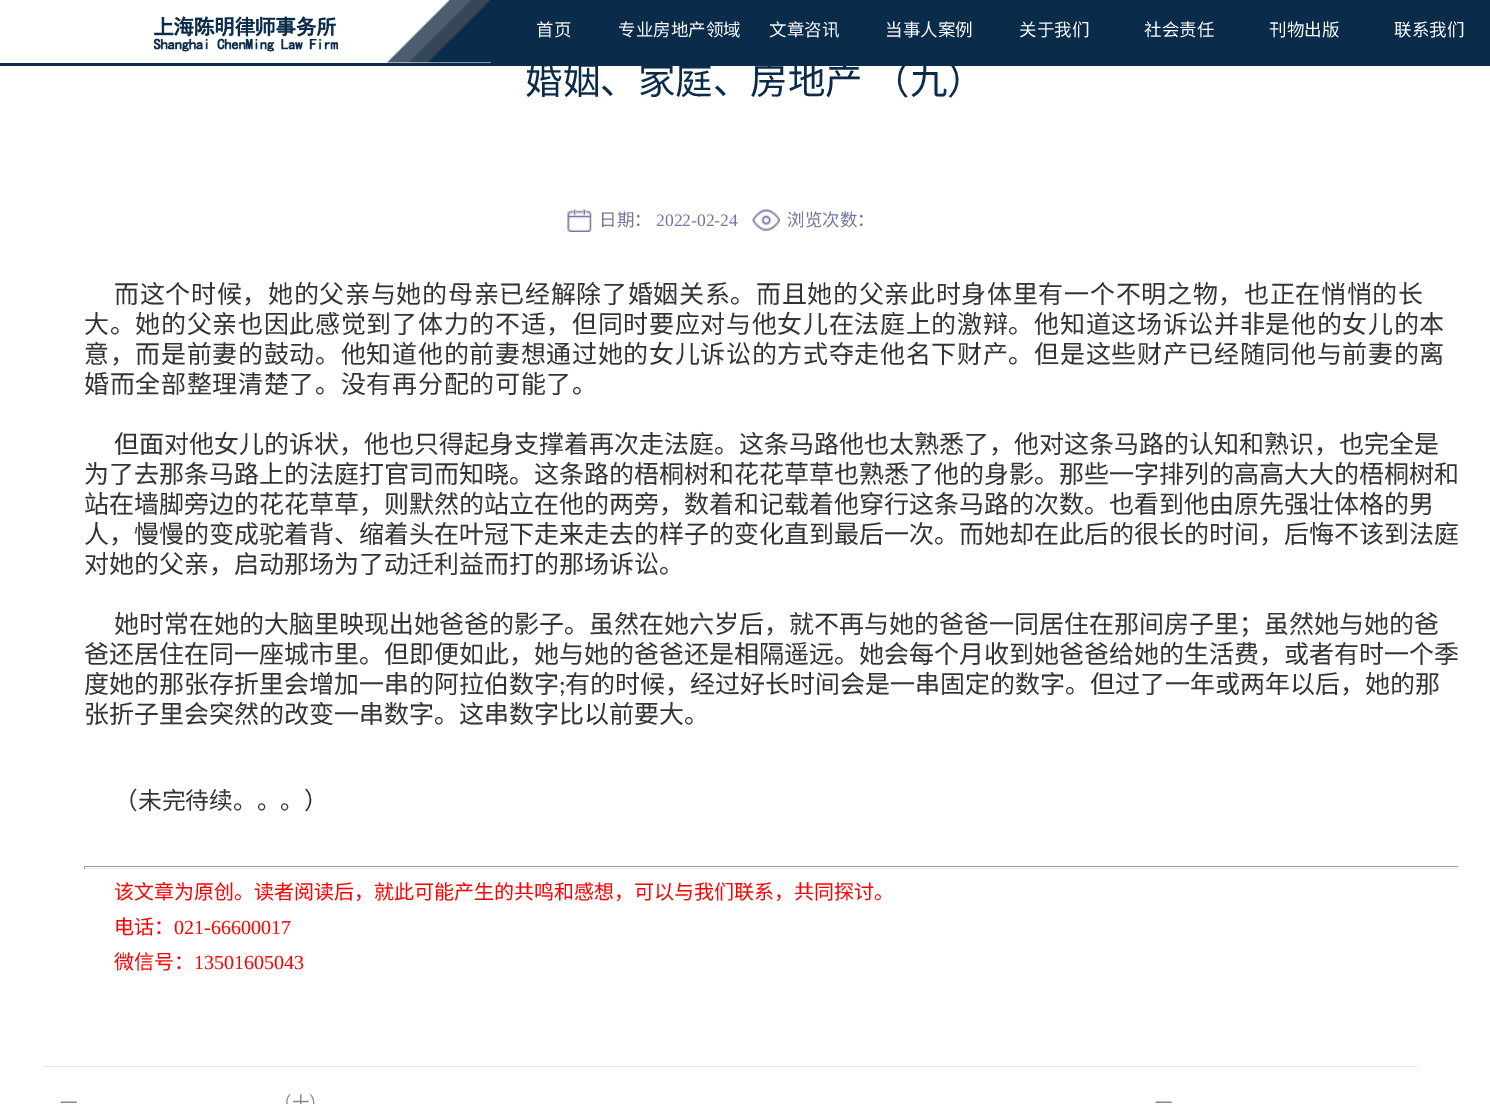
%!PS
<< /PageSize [1490 1104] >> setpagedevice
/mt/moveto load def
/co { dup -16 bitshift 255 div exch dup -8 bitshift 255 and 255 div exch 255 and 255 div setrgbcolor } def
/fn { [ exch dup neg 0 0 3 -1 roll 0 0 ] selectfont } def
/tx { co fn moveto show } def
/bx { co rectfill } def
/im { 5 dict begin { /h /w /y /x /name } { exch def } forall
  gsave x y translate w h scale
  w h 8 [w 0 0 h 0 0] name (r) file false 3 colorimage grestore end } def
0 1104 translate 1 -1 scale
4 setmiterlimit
0 0 1490 1104 16#FFFFFF bx
0 63 1490 3 16#0A2B4A bx
(media/1.raw) 153 16 185 36 im
(media/2.raw) 387 0 104 63 im
491 0 999 63 16#0A2B4A bx
(media/3.raw) 567 209 25 23 im
(media/4.raw) 752 209 28 22 im
84 866 1375 1 16#9F9F9F bx
1458 866 1 3 16#EEEEEE bx
84 868 1375 1 16#EEEEEE bx
84 866 1 3 16#9F9F9F bx
43 1066 1375 1 16#E6E2E8 bx
(首页) 536 36 /NotoSansCJKSC-Regular 17.5 16#FFFFFF tx
(专业房地产领域) 618 36 /NotoSansCJKSC-Regular 17.5 16#FFFFFF tx
(文章咨讯) 769 36 /NotoSansCJKSC-Regular 17.5 16#FFFFFF tx
(当事人案例) 885 36 /NotoSansCJKSC-Regular 17.5 16#FFFFFF tx
(关于我们) 1019 36 /NotoSansCJKSC-Regular 17.5 16#FFFFFF tx
(社会责任) 1144 36 /NotoSansCJKSC-Regular 17.5 16#FFFFFF tx
(刊物出版) 1269 36 /NotoSansCJKSC-Regular 17.5 16#FFFFFF tx
(联系我们) 1394 36 /NotoSansCJKSC-Regular 17.5 16#FFFFFF tx
(婚姻、家庭、房地产) 525 94 /NotoSansCJKSC-Regular 37.5 16#0A2B4A tx
(（九）) 872 94 /NotoSansCJKSC-Regular 37.5 16#0A2B4A tx
(日期：) 599 226 /NotoSansCJKSC-Regular 17.5 16#72759E tx
(2022-02-24) 656 226 /LiberationSerif-Regular 17.5 16#72759E tx
(浏览次数：) 787 226 /NotoSansCJKSC-Regular 17.5 16#72759E tx
/NotoSansCJKSC-Regular 25 fn
16#333333 co
114 303 mt .68 0 (而这个时候，她的父亲与她的母亲已经解除了婚姻关系。而且她的父亲此时身体里有一个不明之物，也正在悄悄的长) ashow
84 333 mt .68 0 (大。她的父亲也因此感觉到了体力的不适，但同时要应对与他女儿在法庭上的激辩。他知道这场诉讼并非是他的女儿的本) ashow
84 363 mt .68 0 (意，而是前妻的鼓动。他知道他的前妻想通过她的女儿诉讼的方式夺走他名下财产。但是这些财产已经随同他与前妻的离) ashow
84 393 mt .68 0 (婚而全部整理清楚了。没有再分配的可能了。) ashow
(但面对他女儿的诉状，他也只得起身支撑着再次走法庭。这条马路他也太熟悉了，他对这条马路的认知和熟识，也完全是) 114 453 /NotoSansCJKSC-Regular 25 16#333333 tx
(为了去那条马路上的法庭打官司而知晓。这条路的梧桐树和花花草草也熟悉了他的身影。那些一字排列的高高大大的梧桐树和) 84 483 /NotoSansCJKSC-Regular 25 16#333333 tx
(站在墙脚旁边的花花草草，则默然的站立在他的两旁，数着和记载着他穿行这条马路的次数。也看到他由原先强壮体格的男) 84 513 /NotoSansCJKSC-Regular 25 16#333333 tx
(人，慢慢的变成驼着背、缩着头在叶冠下走来走去的样子的变化直到最后一次。而她却在此后的很长的时间，后悔不该到法庭) 84 543 /NotoSansCJKSC-Regular 25 16#333333 tx
(对她的父亲，启动那场为了动迁利益而打的那场诉讼。) 84 573 /NotoSansCJKSC-Regular 25 16#333333 tx
(她时常在她的大脑里映现出她爸爸的影子。虽然在她六岁后，就不再与她的爸爸一同居住在那间房子里；虽然她与她的爸) 114 633 /NotoSansCJKSC-Regular 25 16#333333 tx
(爸还居住在同一座城市里。但即便如此，她与她的爸爸还是相隔遥远。她会每个月收到她爸爸给她的生活费，或者有时一个季) 84 663 /NotoSansCJKSC-Regular 25 16#333333 tx
(度她的那张存折里会增加一串的阿拉伯数字) 84 693 /NotoSansCJKSC-Regular 25 16#333333 tx
(;) 559 693 /Carlito-Regular 25 16#333333 tx
(有的时候，经过好长时间会是一串固定的数字。但过了一年或两年以后，她的那) 565 693 /NotoSansCJKSC-Regular 25 16#333333 tx
(张折子里会突然的改变一串数字。这串数字比以前要大。) 84 723 /NotoSansCJKSC-Regular 25 16#333333 tx
(（未完待续。。。）) 114 809 /NotoSansCJKSC-Regular 23.75 16#333333 tx
(该文章为原创。读者阅读后，就此可能产生的共鸣和感想，可以与我们联系，共同探讨。) 114 899 /NotoSansCJKSC-Regular 20 16#FF0000 tx
(电话：) 114 934 /NotoSansCJKSC-Regular 20 16#FF0000 tx
(021-66600017) 174 934 /LiberationSerif-Regular 20 16#FF0000 tx
(微信号：) 114 969 /NotoSansCJKSC-Regular 20 16#FF0000 tx
(13501605043) 194 969 /LiberationSerif-Regular 20 16#FF0000 tx
(一) 60 1109 /NotoSansCJKSC-Regular 17.5 16#898988 tx
(（十）) 274 1109 /NotoSansCJKSC-Regular 17.5 16#898988 tx
(一) 1155 1109 /NotoSansCJKSC-Regular 17.5 16#898988 tx
showpage
